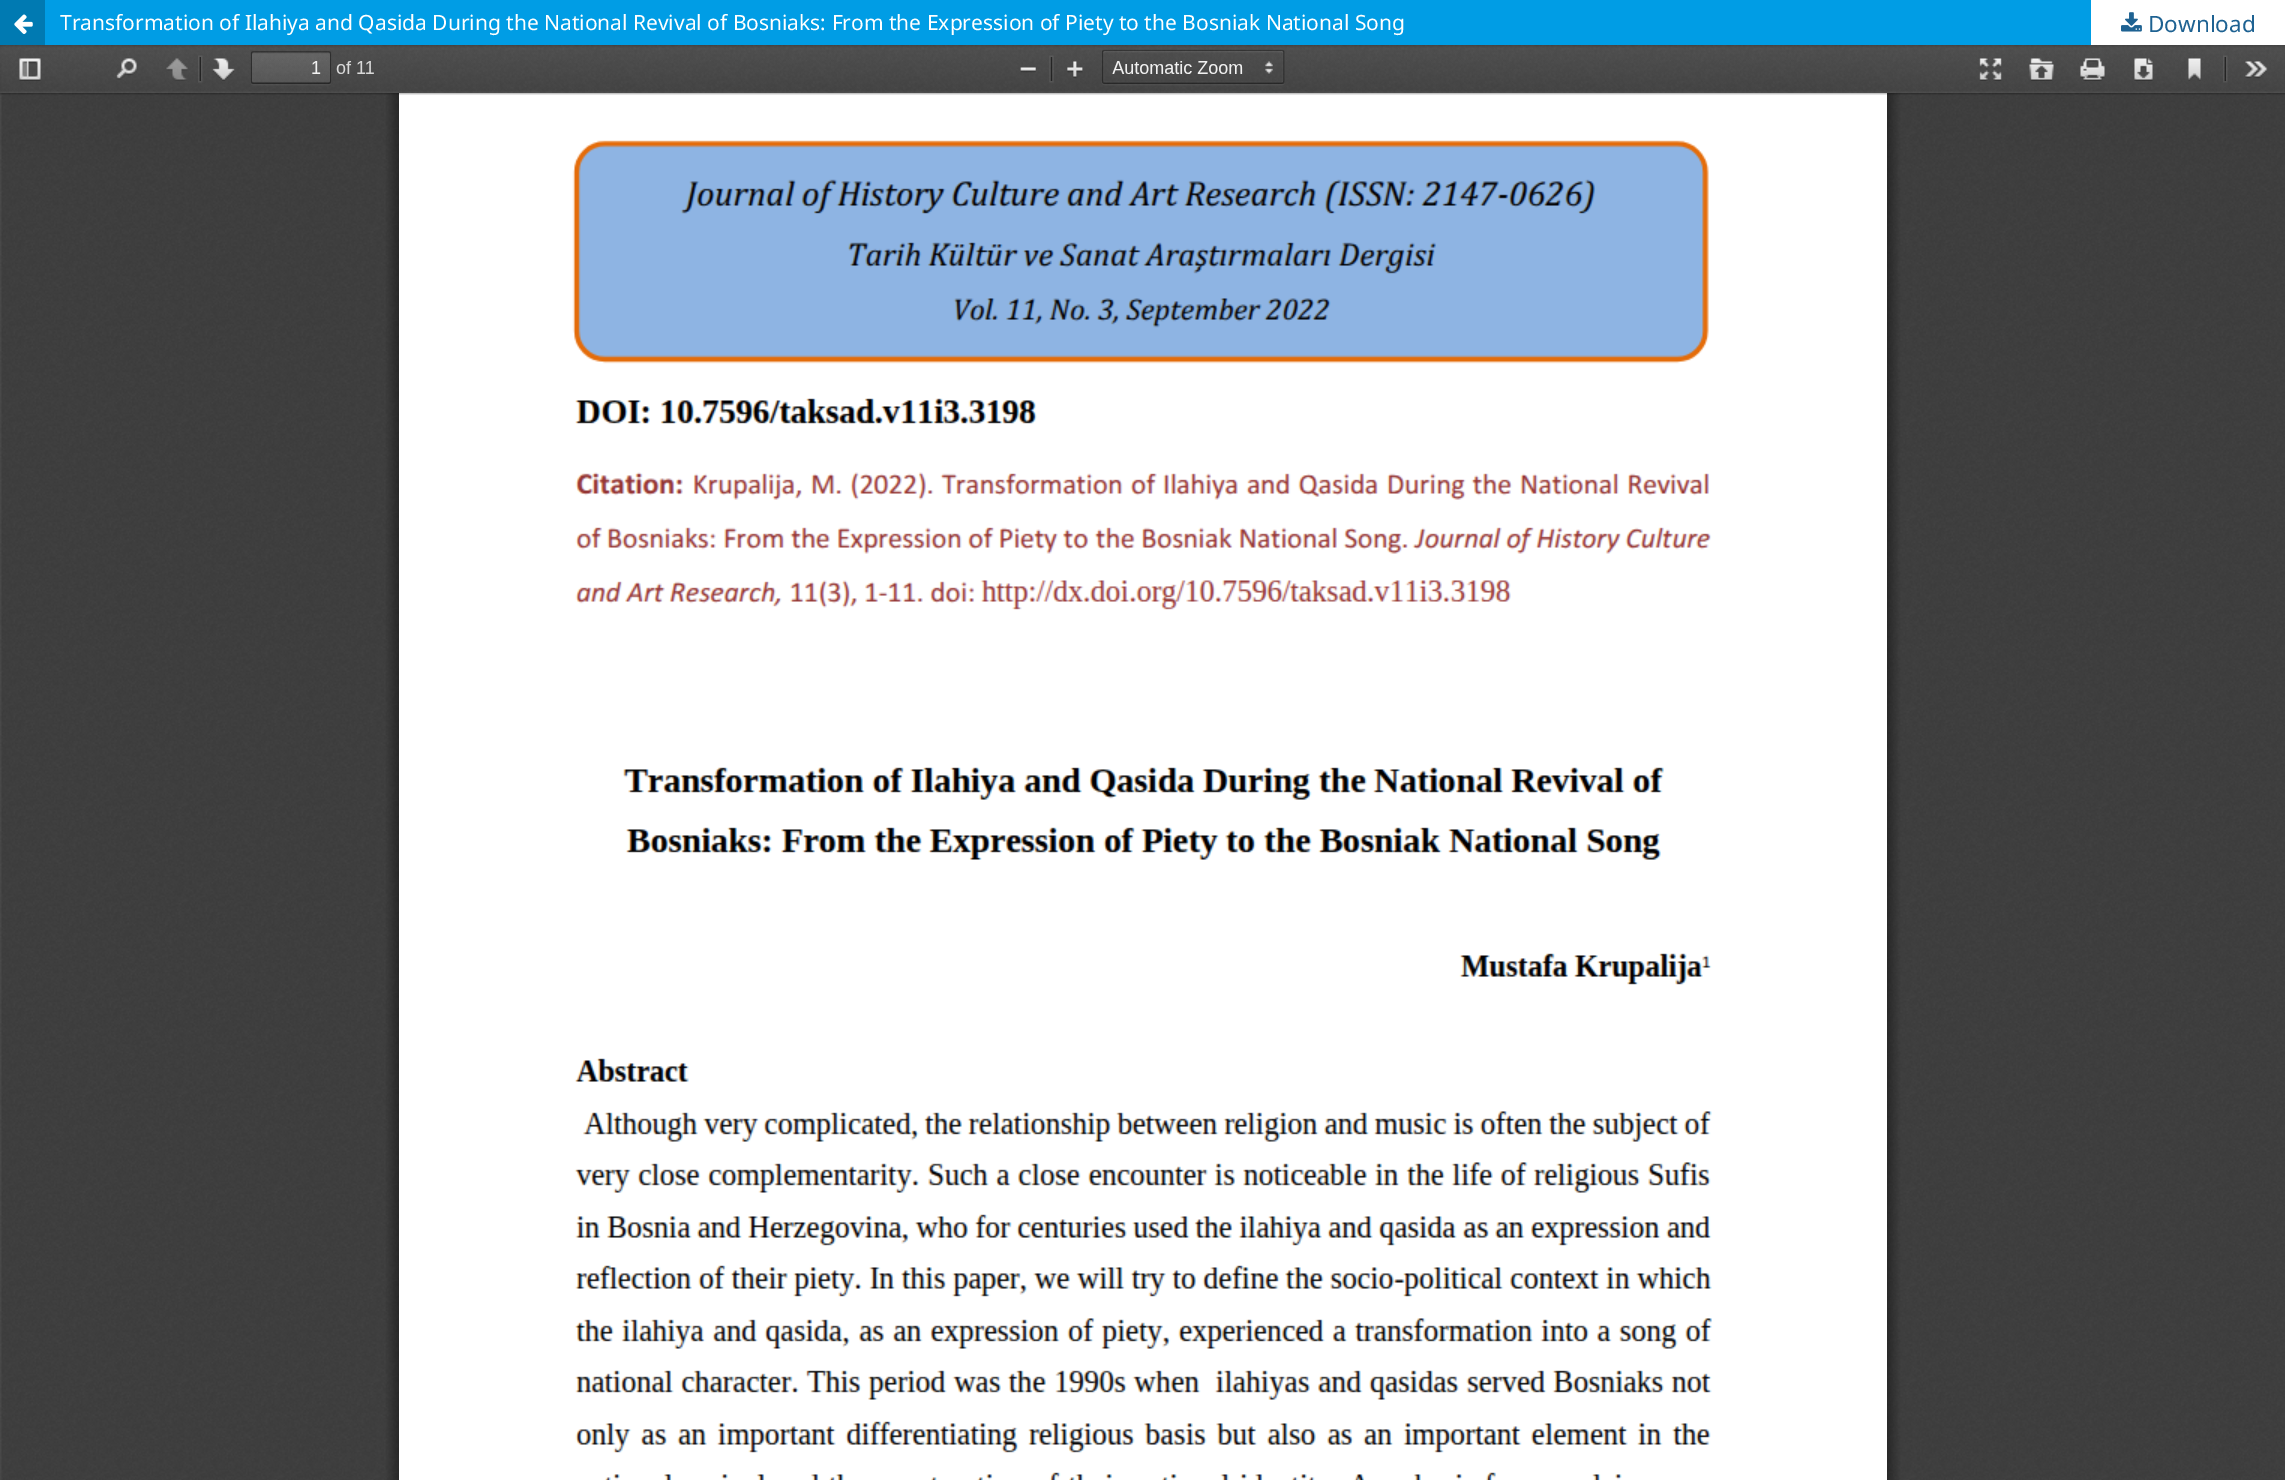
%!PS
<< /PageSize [2285 1480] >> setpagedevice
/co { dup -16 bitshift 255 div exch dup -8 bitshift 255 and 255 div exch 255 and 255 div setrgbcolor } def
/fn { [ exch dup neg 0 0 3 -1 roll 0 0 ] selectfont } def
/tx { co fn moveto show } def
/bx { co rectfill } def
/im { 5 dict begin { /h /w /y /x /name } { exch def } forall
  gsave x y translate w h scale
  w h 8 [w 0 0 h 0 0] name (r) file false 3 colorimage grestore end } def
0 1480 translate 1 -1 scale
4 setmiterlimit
0 0 2285 1480 16#FFFFFF bx
45 0 2046 45 16#009DE5 bx
0 0 45 45 16#007AB2 bx
(media/1.raw) 14 14 19 20 im
(media/2.raw) 2121 12 21 20 im
(media/3.raw) 0 45 2285 1435 im
(Transformation of Ilahiya and Qasida During the National Revival of Bosniaks: From the Expression of Piety to the Bosniak National Song) 60 30 /NotoSans-Regular 21 16#FFFFFF tx
(Download) 2148 32 /NotoSans-Regular 22.5 16#1E6292 tx
showpage
